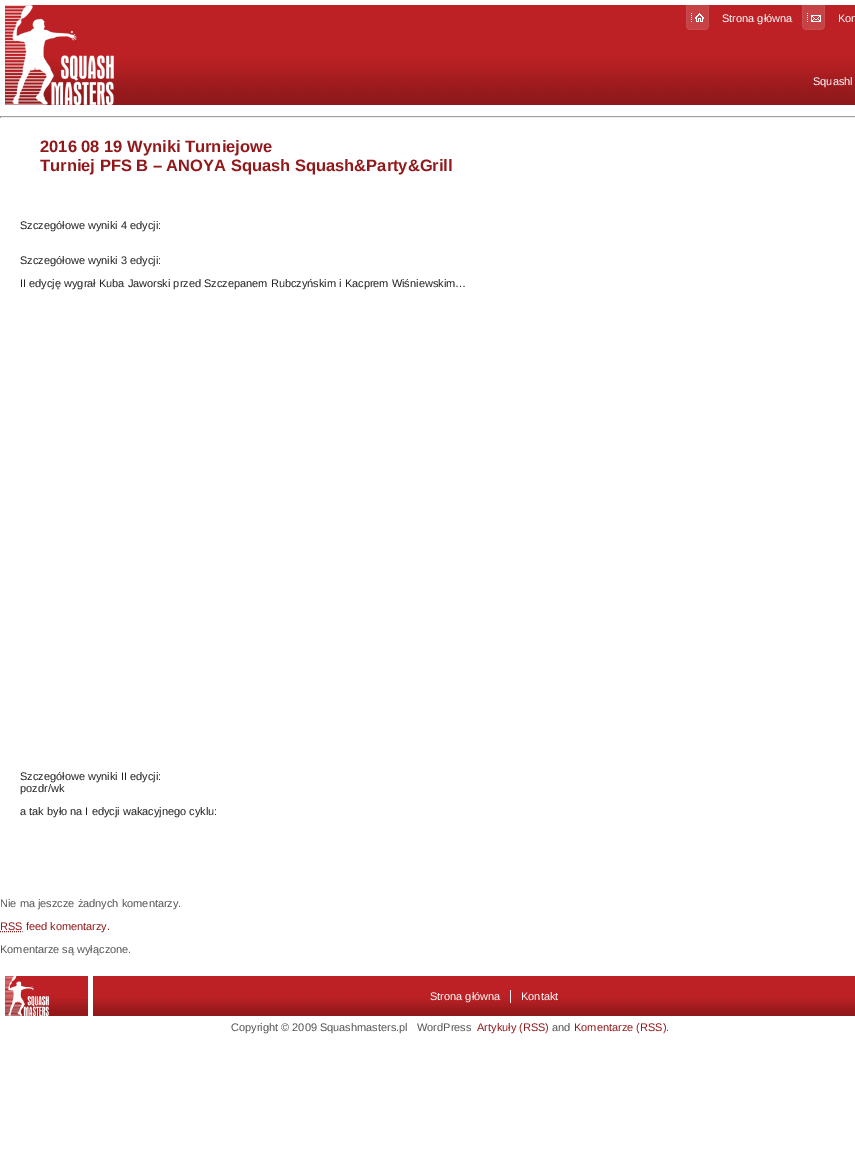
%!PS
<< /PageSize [855 1154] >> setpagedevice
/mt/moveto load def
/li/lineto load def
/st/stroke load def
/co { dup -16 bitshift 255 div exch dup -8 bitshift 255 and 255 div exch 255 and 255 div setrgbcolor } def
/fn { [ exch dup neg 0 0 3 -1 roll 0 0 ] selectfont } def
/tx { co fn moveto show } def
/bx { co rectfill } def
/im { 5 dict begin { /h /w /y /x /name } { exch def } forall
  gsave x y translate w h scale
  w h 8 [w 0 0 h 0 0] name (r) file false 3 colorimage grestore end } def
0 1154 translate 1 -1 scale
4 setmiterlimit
0 0 855 1154 16#FFFFFF bx
(media/1.raw) 114 5 741 100 im
(media/2.raw) 5 5 109 100 im
(media/3.raw) 686 5 23 25 im
(media/4.raw) 802 5 23 25 im
0 116 855 1 16#9F9F9F bx
0 117 855 1 16#EEEEEE bx
0 116 1 2 16#9F9F9F bx
16#92191B co
[1 1] 0 setdash
0 931.5 mt 22.5 931.5 li st
(media/5.raw) 5 976 83 40 im
(media/6.raw) 93 976 762 40 im
(media/7.raw) 510 990 1 13 im
(Strona główna) 722 22 /LiberationSans-Regular 11 16#FFFFFF tx
(Kon) 838 22 /LiberationSans-Regular 11 16#FFFFFF tx
(Squashl) 813 85 /LiberationSans-Regular 11 16#FFFFFF tx
(2016 08 19 Wyniki Turniejowe) 40 152 /LiberationSans-Bold 16.5 16#92191B tx
(Turniej PFS B – ANOYA Squash Squash&Party&Grill) 40 171 /LiberationSans-Bold 16.5 16#92191B tx
(Szczegółowe wyniki 4 edycji:) 20 229 /LiberationSans-Regular 11 16#222222 tx
(Szczegółowe wyniki 3 edycji:) 20 264 /LiberationSans-Regular 11 16#222222 tx
(II edycję wygrał Kuba Jaworski przed Szczepanem Rubczyńskim i Kacprem Wiśniewskim…) 20 287 /LiberationSans-Regular 11 16#222222 tx
(Szczegółowe wyniki II edycji:) 20 780 /LiberationSans-Regular 11 16#222222 tx
(pozdr/wk) 20 792 /LiberationSans-Regular 11 16#222222 tx
(a tak było na I edycji wakacyjnego cyklu:) 20 815 /LiberationSans-Regular 11 16#222222 tx
(Nie ma jeszcze żadnych komentarzy.) 0 907 /LiberationSans-Regular 11 16#555555 tx
(RSS feed komentarzy.) 0 930 /LiberationSans-Regular 11 16#92191B tx
(Komentarze są wyłączone.) 0 953 /LiberationSans-Regular 11 16#555555 tx
(Strona główna) 430 1000 /LiberationSans-Regular 11 16#FFFFFF tx
(Kontakt) 521 1000 /LiberationSans-Regular 11 16#FFFFFF tx
(Copyright © 2009 Squashmasters.pl   WordPress) 231 1031 /LiberationSans-Regular 11 16#555555 tx
(Artykuły \(RSS\)) 477 1031 /LiberationSans-Regular 11 16#92191B tx
(and) 552 1031 /LiberationSans-Regular 11 16#555555 tx
(Komentarze \(RSS\)) 574 1031 /LiberationSans-Regular 11 16#92191B tx
(.) 666 1031 /LiberationSans-Regular 11 16#555555 tx
showpage
